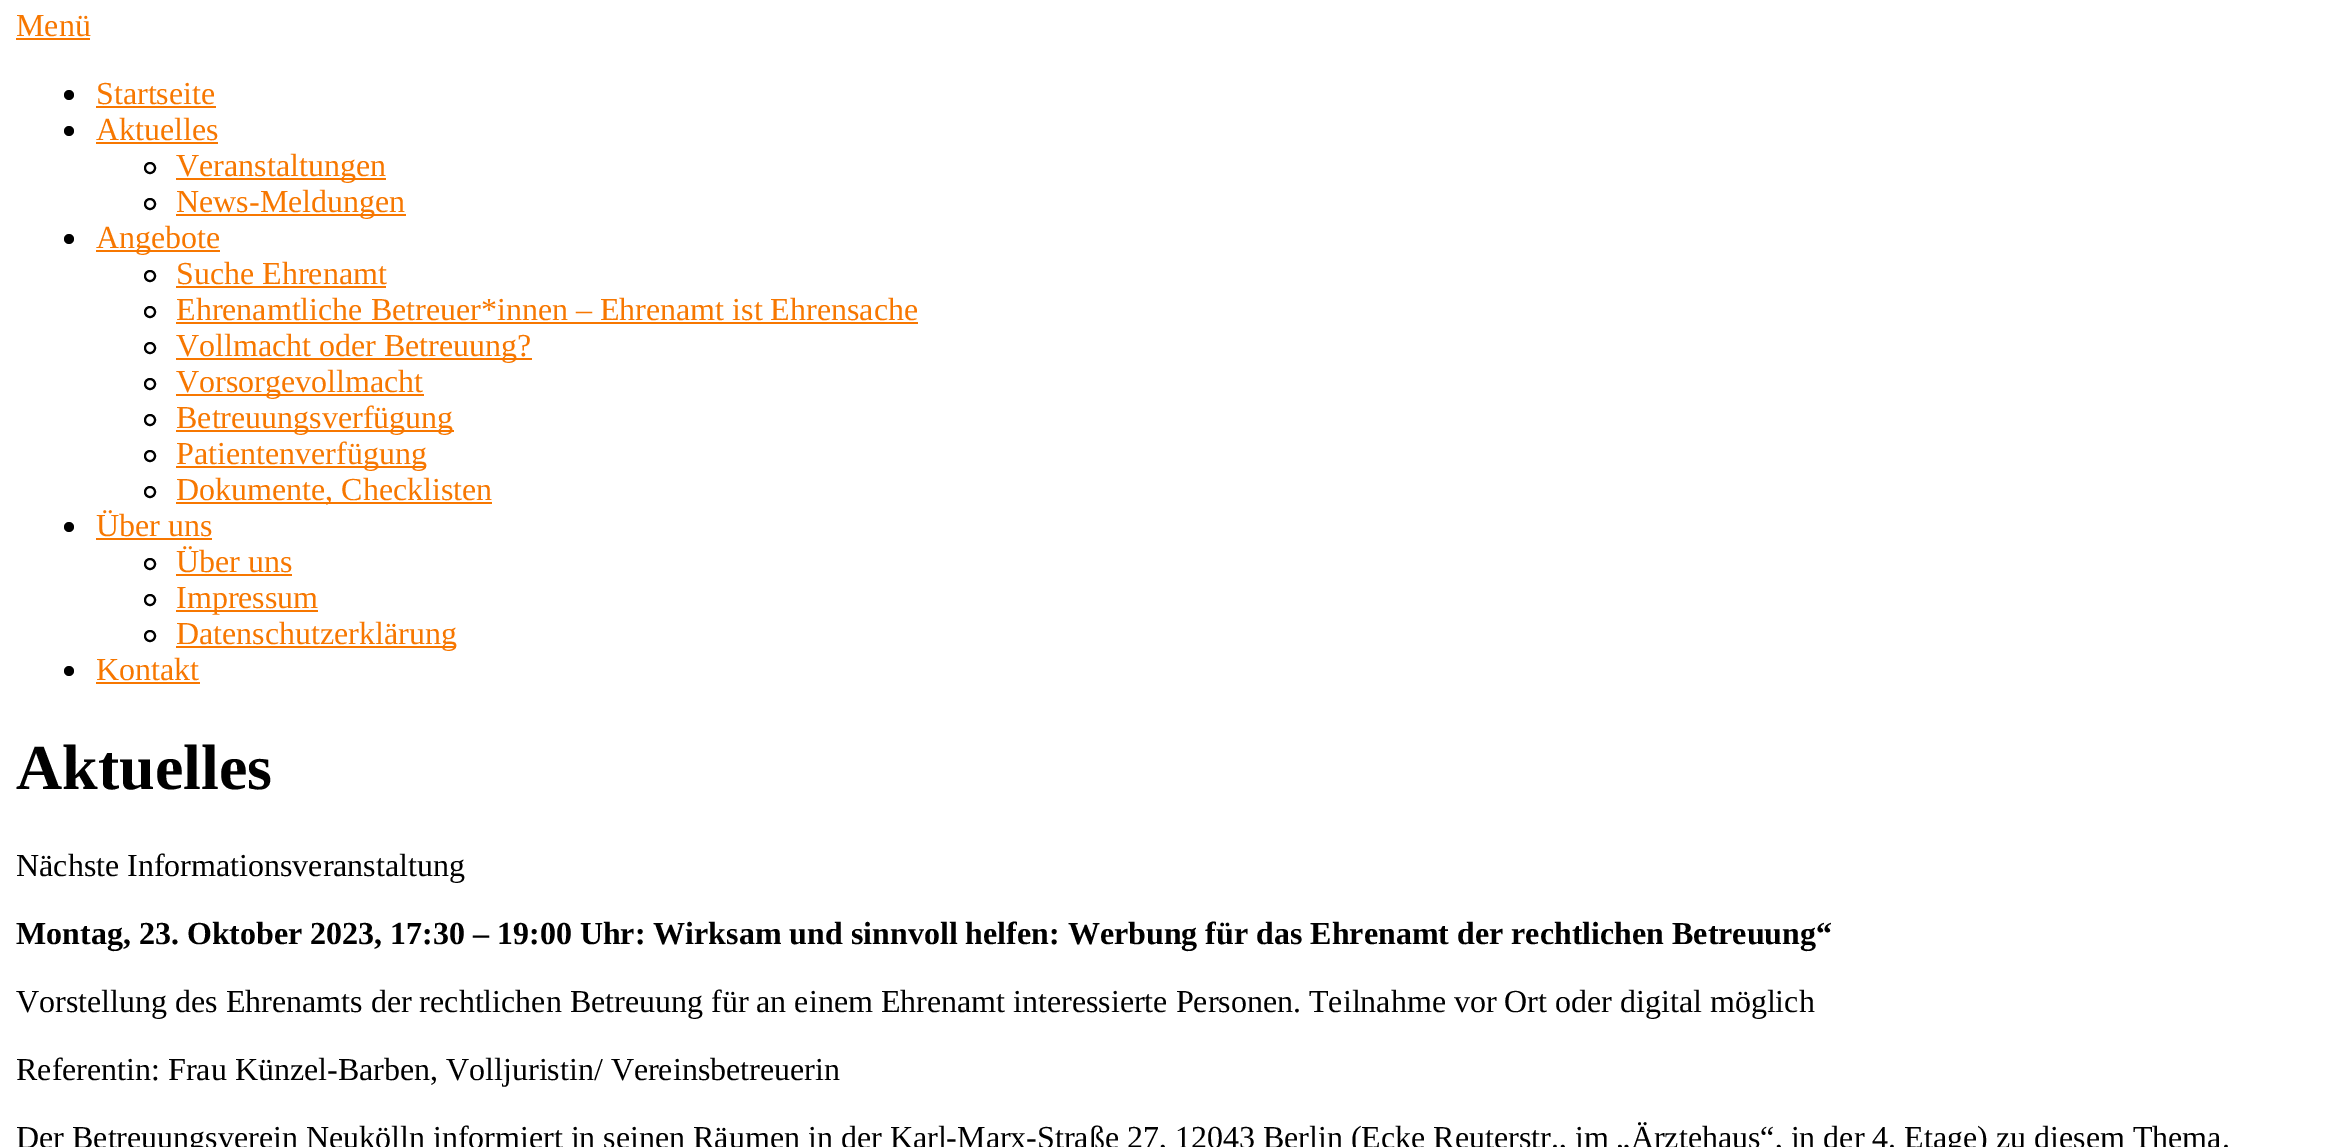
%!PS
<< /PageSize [2341 1147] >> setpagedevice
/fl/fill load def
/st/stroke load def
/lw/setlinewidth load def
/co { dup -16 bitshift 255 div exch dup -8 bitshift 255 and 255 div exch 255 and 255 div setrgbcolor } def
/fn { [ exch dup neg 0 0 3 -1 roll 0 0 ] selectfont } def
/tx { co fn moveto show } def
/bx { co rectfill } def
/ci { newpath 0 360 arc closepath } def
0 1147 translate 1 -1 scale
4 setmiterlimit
0 0 2341 1147 16#FFFFFF bx
16 38 74 2 16#F77700 bx
16#000000 co
69 95 5 ci fl
96 106 120 2 16#F77700 bx
16#000000 co
69 131 5 ci fl
96 142 122 2 16#F77700 bx
16#000000 co
2 lw
150 168 5 ci st
176 178 210 2 16#F77700 bx
16#000000 co
150 204 5 ci st
176 214 230 2 16#F77700 bx
16#000000 co
69 239 5 ci fl
96 250 124 2 16#F77700 bx
16#000000 co
150 276 5 ci st
176 286 210 2 16#F77700 bx
16#000000 co
150 312 5 ci st
176 322 742 2 16#F77700 bx
16#000000 co
150 348 5 ci st
176 358 356 2 16#F77700 bx
16#000000 co
150 384 5 ci st
176 394 248 2 16#F77700 bx
16#000000 co
150 420 5 ci st
176 430 278 2 16#F77700 bx
16#000000 co
150 456 5 ci st
176 466 250 2 16#F77700 bx
16#000000 co
150 492 5 ci st
176 502 316 2 16#F77700 bx
16#000000 co
69 527 5 ci fl
96 538 116 2 16#F77700 bx
16#000000 co
150 564 5 ci st
176 574 116 2 16#F77700 bx
16#000000 co
150 600 5 ci st
176 610 142 2 16#F77700 bx
16#000000 co
150 636 5 ci st
176 646 280 2 16#F77700 bx
16#000000 co
69 671 5 ci fl
96 682 104 2 16#F77700 bx
(Menü) 16 36 /LiberationSerif-Regular 32 16#F77700 tx
(Startseite) 96 104 /LiberationSerif-Regular 32 16#F77700 tx
(Aktuelles) 96 140 /LiberationSerif-Regular 32 16#F77700 tx
(Veranstaltungen) 176 176 /LiberationSerif-Regular 32 16#F77700 tx
(News-Meldungen) 176 212 /LiberationSerif-Regular 32 16#F77700 tx
(Angebote) 96 248 /LiberationSerif-Regular 32 16#F77700 tx
(Suche Ehrenamt) 176 284 /LiberationSerif-Regular 32 16#F77700 tx
(Ehrenamtliche Betreuer*innen – Ehrenamt ist Ehrensache) 176 320 /LiberationSerif-Regular 32 16#F77700 tx
(Vollmacht oder Betreuung?) 176 356 /LiberationSerif-Regular 32 16#F77700 tx
(Vorsorgevollmacht) 176 392 /LiberationSerif-Regular 32 16#F77700 tx
(Betreuungsverfügung) 176 428 /LiberationSerif-Regular 32 16#F77700 tx
(Patientenverfügung) 176 464 /LiberationSerif-Regular 32 16#F77700 tx
(Dokumente, Checklisten) 176 500 /LiberationSerif-Regular 32 16#F77700 tx
(Über uns) 96 536 /LiberationSerif-Regular 32 16#F77700 tx
(Über uns) 176 572 /LiberationSerif-Regular 32 16#F77700 tx
(Impressum) 176 608 /LiberationSerif-Regular 32 16#F77700 tx
(Datenschutzerklärung) 176 644 /LiberationSerif-Regular 32 16#F77700 tx
(Kontakt) 96 680 /LiberationSerif-Regular 32 16#F77700 tx
(Aktuelles) 16 789 /LiberationSerif-Bold 64 16#000000 tx
(Nächste Informationsveranstaltung) 16 876 /LiberationSerif-Regular 32 16#000000 tx
(Montag, 23. Oktober 2023, 17:30 – 19:00 Uhr: Wirksam und sinnvoll helfen: Werbung für das Ehrenamt der rechtlichen Betreuung“) 16 944 /LiberationSerif-Bold 32 16#000000 tx
(Vorstellung des Ehrenamts der rechtlichen Betreuung für an einem Ehrenamt interessierte Personen. Teilnahme vor Ort oder digital möglich) 16 1012 /LiberationSerif-Regular 32 16#000000 tx
(Referentin: Frau Künzel-Barben, Volljuristin/ Vereinsbetreuerin) 16 1080 /LiberationSerif-Regular 32 16#000000 tx
(Der Betreuungsverein Neukölln informiert in seinen Räumen in der Karl-Marx-Straße 27, 12043 Berlin \(Ecke Reuterstr., im „Ärztehaus“, in der 4. Etage\) zu diesem Thema.) 16 1148 /LiberationSerif-Regular 32 16#000000 tx
showpage
